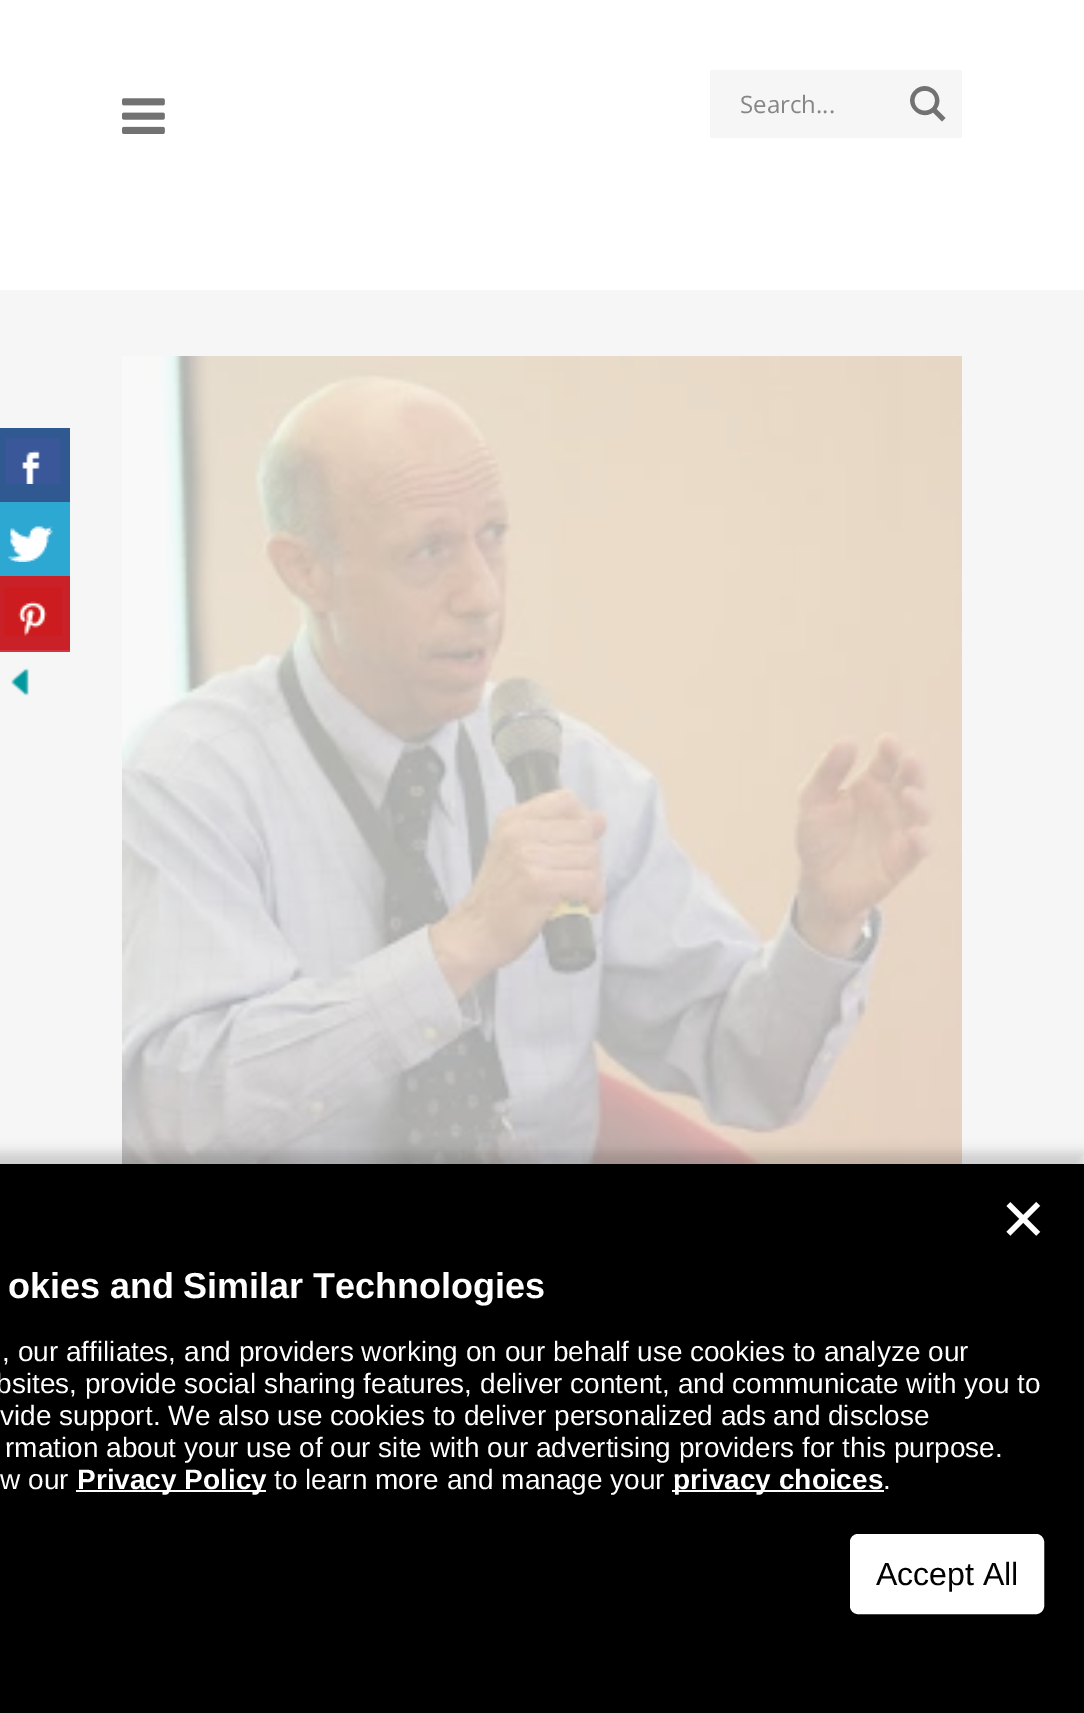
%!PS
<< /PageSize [1084 1713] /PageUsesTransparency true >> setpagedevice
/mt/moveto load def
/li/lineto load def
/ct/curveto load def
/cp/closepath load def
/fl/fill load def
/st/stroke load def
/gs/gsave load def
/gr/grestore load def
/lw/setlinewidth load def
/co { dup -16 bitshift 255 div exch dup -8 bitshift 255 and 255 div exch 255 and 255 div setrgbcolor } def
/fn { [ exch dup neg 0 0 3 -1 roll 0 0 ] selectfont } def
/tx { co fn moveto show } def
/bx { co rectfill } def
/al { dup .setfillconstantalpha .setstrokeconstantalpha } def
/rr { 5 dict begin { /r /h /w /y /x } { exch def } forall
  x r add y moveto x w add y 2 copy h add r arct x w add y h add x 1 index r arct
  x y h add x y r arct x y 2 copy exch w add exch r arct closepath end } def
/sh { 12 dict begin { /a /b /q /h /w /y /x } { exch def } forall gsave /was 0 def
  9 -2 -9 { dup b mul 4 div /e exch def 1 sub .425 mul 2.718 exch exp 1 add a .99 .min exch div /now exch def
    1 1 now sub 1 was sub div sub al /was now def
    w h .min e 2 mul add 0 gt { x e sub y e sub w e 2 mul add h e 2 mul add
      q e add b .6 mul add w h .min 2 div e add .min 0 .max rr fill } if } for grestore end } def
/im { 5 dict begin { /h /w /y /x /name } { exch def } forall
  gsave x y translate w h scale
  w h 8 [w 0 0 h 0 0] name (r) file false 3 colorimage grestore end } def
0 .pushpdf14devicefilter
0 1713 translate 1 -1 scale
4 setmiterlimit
0 0 1084 1713 16#F6F6F6 bx
0 0 1084 290 16#FFFFFF bx
(media/1.raw) 122 98 43 36 im
710 70 252 68 16#F6F6F6 bx
16#727272 co
945.5 118 mt 936.5 109 li 946.5 95 927.5 78 914.5 90.5 ct 902 103 919 122 933 112.5 ct 942 121.5 li cp 914.5 100.5 mt 914.5 87.5 935 87.5 935 100.5 ct 935 114 914.5 114 914.5 100.5 ct cp fl
(media/2.raw) 122 356 840 808 im
0 428 70 74 16#305891 bx
(media/3.raw) 5 438 56 46 im
0 502 70 74 16#2CA8D2 bx
(media/4.raw) 8 526 45 36 im
0 576 70 74 16#CA2027 bx
0 650 70 2 16#CF363D bx
(media/5.raw) 4 587 58 49 im
(media/6.raw) 11 668 18 28 im
16#000000 co
-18 1152 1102 550 0 6 .16 sh
0 1164 1084 549 16#000000 bx
76 1490 190 2 16#FFFFFF bx
672 1490 212 2 16#FFFFFF bx
852 1536 190 76 6 rr gs fl gr
4 lw
st
(Search...) 740 113 /OpenSans-Regular 24 16#868686 tx
(✕) 999 1240 /DejaVuSans-Regular 58 16#FFFFFF tx
/LiberationSans-Bold 36 fn
8 1298 mt -.5 0 32 (okies and Similar Technologies) widthshow
(, our affiliates, and providers working on our behalf use cookies to analyze our) 2 1361 /LiberationSans-Regular 28 16#FFFFFF tx
(bsites, provide social sharing features, deliver content, and communicate with you to) -4 1393 /LiberationSans-Regular 28 16#FFFFFF tx
(vide support. We also use cookies to deliver personalized ads and disclose) 0 1425 /LiberationSans-Regular 28 16#FFFFFF tx
(rmation about your use of our site with our advertising providers for this purpose.) 5 1457 /LiberationSans-Regular 28 16#FFFFFF tx
(w our) 0 1489 /LiberationSans-Regular 28 16#FFFFFF tx
(Privacy Policy) 77 1489 /LiberationSans-Bold 28 16#FFFFFF tx
(to learn more and manage your) 274 1489 /LiberationSans-Regular 28 16#FFFFFF tx
(privacy choices) 673 1489 /LiberationSans-Bold 28 16#FFFFFF tx
(.) 883 1489 /LiberationSans-Regular 28 16#FFFFFF tx
(Accept All) 876 1585 /LiberationSans-Regular 32 16#000000 tx
.poppdf14devicefilter showpage
